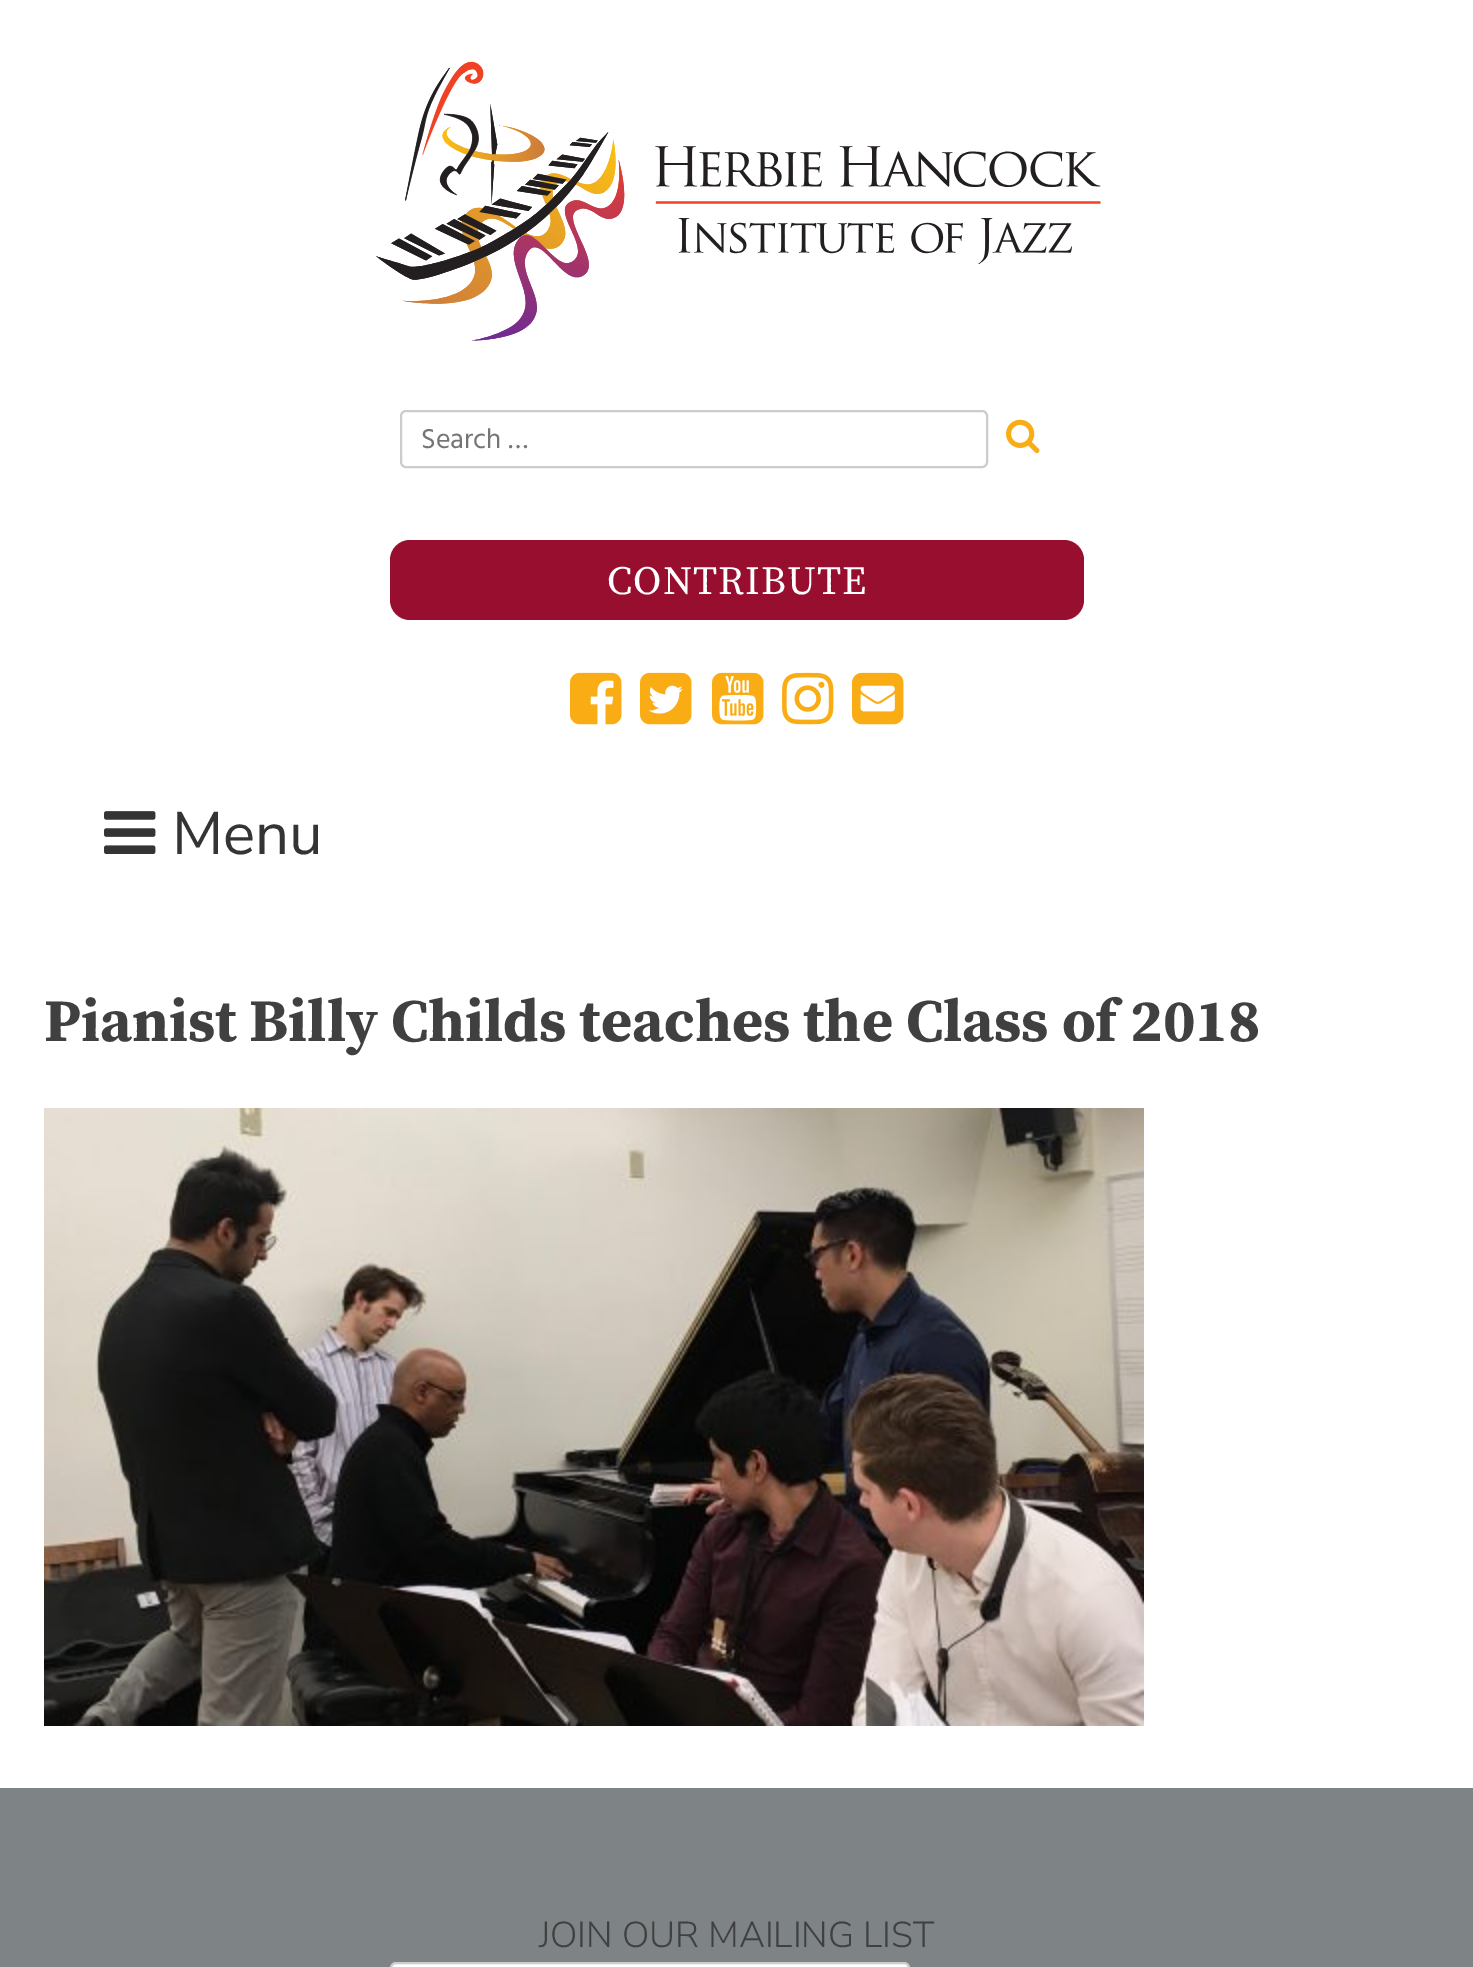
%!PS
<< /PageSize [1473 1967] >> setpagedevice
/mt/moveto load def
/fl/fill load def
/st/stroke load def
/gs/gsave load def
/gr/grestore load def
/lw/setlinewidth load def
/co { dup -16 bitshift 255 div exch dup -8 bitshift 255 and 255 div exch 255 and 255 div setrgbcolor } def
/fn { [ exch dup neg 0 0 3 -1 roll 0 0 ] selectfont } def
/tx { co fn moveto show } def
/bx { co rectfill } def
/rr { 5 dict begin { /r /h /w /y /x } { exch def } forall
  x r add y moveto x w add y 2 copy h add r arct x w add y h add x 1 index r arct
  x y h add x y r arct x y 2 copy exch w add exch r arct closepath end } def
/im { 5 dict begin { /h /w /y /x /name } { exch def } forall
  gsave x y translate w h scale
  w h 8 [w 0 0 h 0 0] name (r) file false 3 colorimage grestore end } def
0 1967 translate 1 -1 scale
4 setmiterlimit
0 0 1473 1967 16#FFFFFF bx
(media/1.raw) 376 61 725 280 im
16#CCCCCC co
2 lw
401 411 586 56 5 rr st
(media/2.raw) 1006 419 34 35 im
16#970E2E co
390 540 694 80 20 rr fl
(media/3.raw) 570 672 52 53 im
(media/4.raw) 640 672 52 53 im
(media/5.raw) 712 672 52 53 im
(media/6.raw) 782 672 52 53 im
(media/7.raw) 852 672 52 53 im
(media/8.raw) 104 811 52 43 im
(media/9.raw) 44 1108 1100 618 im
0 1788 1473 179 16#7E8385 bx
16#FFFFFF co
391 1963 518 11 5 rr gs fl gr
16#CCCCCC co
st
(Search …) 421 448 /HindSiliguri-Regular 28 16#757575 tx
/SourceSerifPro-Regular 40 fn
16#FFFFFF co
607 594 mt 1 0 (CONTRIBUTE) ashow
(Menu) 172 854 /NunitoSans-Regular 60 16#343434 tx
(Pianist Billy Childs teaches the Class of 2018) 44 1041 /SourceSerifPro-Bold 60 16#404040 tx
(JOIN OUR MAILING LIST) 539 1947 /NunitoSans-Light 36 16#404040 tx
showpage
